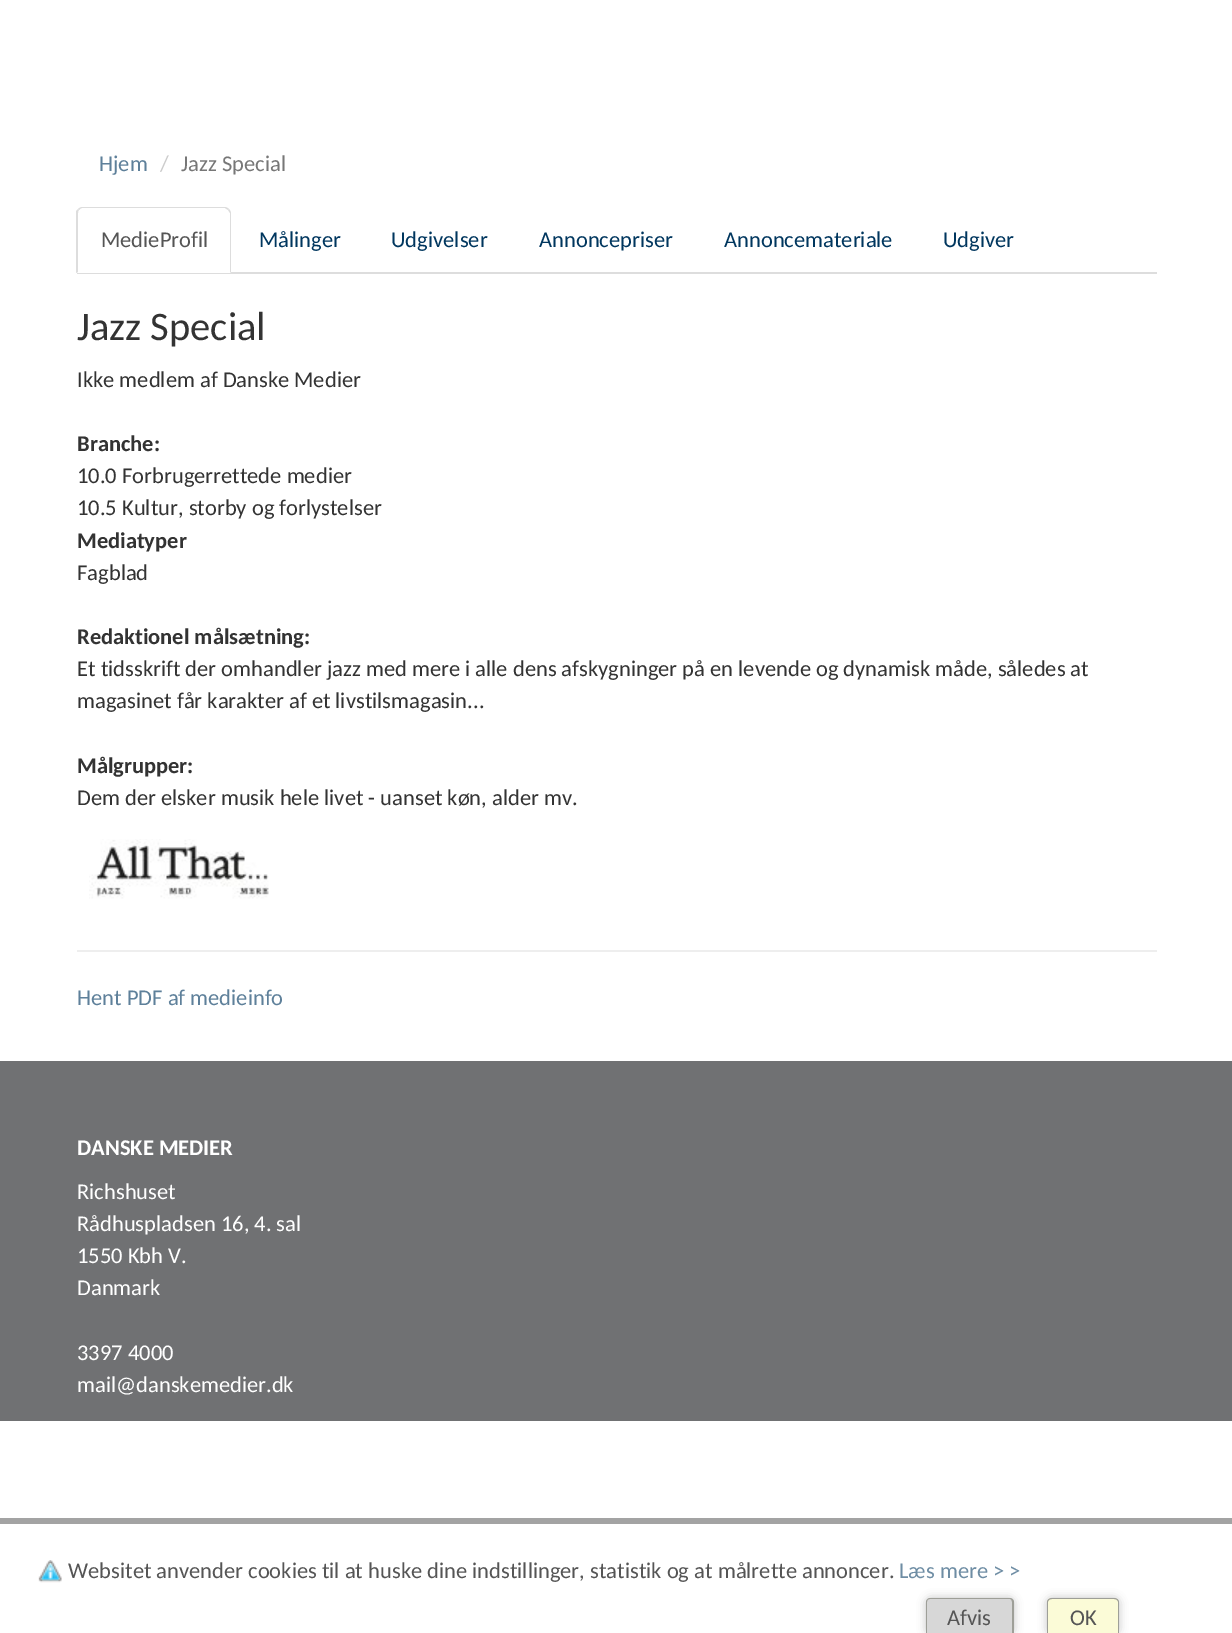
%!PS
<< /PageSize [1232 1633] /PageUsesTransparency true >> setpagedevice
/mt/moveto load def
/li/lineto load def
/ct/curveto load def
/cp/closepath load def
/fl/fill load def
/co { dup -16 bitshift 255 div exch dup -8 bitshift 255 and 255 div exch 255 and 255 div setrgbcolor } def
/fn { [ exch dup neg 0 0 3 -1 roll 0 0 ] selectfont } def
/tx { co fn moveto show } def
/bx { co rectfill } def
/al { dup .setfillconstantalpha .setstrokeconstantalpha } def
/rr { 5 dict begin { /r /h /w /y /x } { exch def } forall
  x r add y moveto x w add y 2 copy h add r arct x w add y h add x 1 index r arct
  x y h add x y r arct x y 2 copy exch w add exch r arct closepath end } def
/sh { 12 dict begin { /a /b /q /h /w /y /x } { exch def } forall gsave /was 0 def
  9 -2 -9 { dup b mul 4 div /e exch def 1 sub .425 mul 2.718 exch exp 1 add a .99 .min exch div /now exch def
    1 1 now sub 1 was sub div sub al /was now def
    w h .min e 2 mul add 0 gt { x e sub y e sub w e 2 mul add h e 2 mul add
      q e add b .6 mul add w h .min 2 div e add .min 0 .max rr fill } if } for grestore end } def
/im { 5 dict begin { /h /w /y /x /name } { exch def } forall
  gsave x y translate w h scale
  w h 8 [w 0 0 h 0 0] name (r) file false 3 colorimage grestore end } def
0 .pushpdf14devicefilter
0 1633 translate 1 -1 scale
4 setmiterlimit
0 0 1232 1633 16#FFFFFF bx
77 272 1080 2 16#DDDDDD bx
16#FFFFFF co
83 207 mt 225 207 li 228.5 207 231 209.5 231 213 ct 231 273 li 77 273 li 77 213 li 77 209.5 79.5 207 83 207 ct cp fl
16#DDDDDD co
82 207 mt 81 207 79 208 78 209 ct 79 210 li 80 209 81 208 82 208 ct 225 208 li 228 210 li 229 209 li 228 208 226 207 225 207 ct cp fl
231 273 mt 231 213 li 231 212 230 210 229 209 ct 228 210 li 230 213 li 230 272 li cp fl
76 273 mt 76 211 li 78 209 li 79 210 li 78 211 78 212 78 213 ct 78 272 li cp fl
(media/1.raw) 89 839 180 60 im
77 950 1080 2 16#EEEEEE bx
0 1061 1232 360 16#707173 bx
0 1518 1232 6 16#A3A3A3 bx
(media/2.raw) 38 1560 24 23 im
16#C2C2C2 co
926 1598 88 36 5 4.5 1 sh
16#D7D7D7 co
931 1598 mt 1009 1598 li 1012 1598 1014 1600 1014 1603 ct 1014 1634 li 926 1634 li 926 1603 li 926 1600 928 1598 931 1598 ct cp fl
16#9E9F98 co
930 1598 mt 1010 1598 li 1012 1598 1014 1600 1014 1602 ct 1014 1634 li 926 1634 li 926 1602 li 926 1600 928 1598 930 1598 ct cp 930 1599 mt 1010 1599 li 1011 1599 1012 1600 1012 1602 ct 1012 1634 li 927 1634 li 927 1602 li 927 1600 928 1599 930 1599 ct cp eofill
16#C2C2C2 co
1047 1598 72 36 5 4.5 1 sh
16#FBFBD7 co
1052 1598 mt 1114 1598 li 1117 1598 1119 1600 1119 1603 ct 1119 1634 li 1047 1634 li 1047 1603 li 1047 1600 1049 1598 1052 1598 ct cp fl
16#9E9F98 co
1052 1598 mt 1114 1598 li 1117 1598 1119 1600 1119 1602 ct 1119 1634 li 1047 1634 li 1047 1602 li 1047 1600 1049 1598 1052 1598 ct cp 1052 1599 mt 1114 1599 li 1116 1599 1118 1600 1118 1602 ct 1118 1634 li 1048 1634 li 1048 1602 li 1048 1600 1050 1599 1052 1599 ct cp eofill
(Hjem) 99 171 /Carlito-Regular 22.5 16#5E809A tx
(/) 160 171 /Carlito-Regular 22.5 16#CCCCCC tx
(Jazz Special) 181 171 /Carlito-Regular 22.5 16#777777 tx
(MedieProfil) 101 247 /Carlito-Regular 22.5 16#555555 tx
(Målinger) 259 247 /Carlito-Regular 22.5 16#00365E tx
(Udgivelser) 391 247 /Carlito-Regular 22.5 16#00365E tx
(Annoncepriser) 539 247 /Carlito-Regular 22.5 16#00365E tx
(Annoncemateriale) 724 247 /Carlito-Regular 22.5 16#00365E tx
(Udgiver) 943 247 /Carlito-Regular 22.5 16#00365E tx
(Jazz Special) 77 340 /Carlito-Regular 40.5 16#333333 tx
(Ikke medlem af Danske Medier) 77 387 /Carlito-Regular 22.5 16#333333 tx
(Branche:) 77 451 /Carlito-Bold 22.5 16#333333 tx
(10.0 Forbrugerrettede medier) 77 483 /Carlito-Regular 22.5 16#333333 tx
(10.5 Kultur, storby og forlystelser) 77 515 /Carlito-Regular 22.5 16#333333 tx
(Mediatyper) 77 548 /Carlito-Bold 22.5 16#333333 tx
(Fagblad) 77 580 /Carlito-Regular 22.5 16#333333 tx
(Redaktionel målsætning:) 77 644 /Carlito-Bold 22.5 16#333333 tx
(Et tidsskrift der omhandler jazz med mere i alle dens afskygninger på en levende og dynamisk måde, således at) 77 676 /Carlito-Regular 22.5 16#333333 tx
(magasinet får karakter af et livstilsmagasin...) 77 708 /Carlito-Regular 22.5 16#333333 tx
(Målgrupper:) 77 773 /Carlito-Bold 22.5 16#333333 tx
(Dem der elsker musik hele livet - uanset køn, alder mv.) 77 805 /Carlito-Regular 22.5 16#333333 tx
(Hent PDF af medieinfo) 77 1005 /Carlito-Regular 22.5 16#5E809A tx
(DANSKE MEDIER) 77 1155 /Carlito-Bold 22.5 16#FFFFFF tx
(Richshuset) 77 1199 /Carlito-Regular 22.5 16#FFFFFF tx
(Rådhuspladsen 16, 4. sal) 77 1231 /Carlito-Regular 22.5 16#FFFFFF tx
(1550 Kbh V.) 77 1263 /Carlito-Regular 22.5 16#FFFFFF tx
(Danmark) 77 1295 /Carlito-Regular 22.5 16#FFFFFF tx
(3397 4000) 77 1360 /Carlito-Regular 22.5 16#FFFFFF tx
(mail@danskemedier.dk) 77 1392 /Carlito-Regular 22.5 16#FFFFFF tx
(Websitet anvender cookies til at huske dine indstillinger, statistik og at målrette annoncer.) 68 1578 /Carlito-Regular 22.5 16#555555 tx
(Læs mere > >) 899 1578 /Carlito-Regular 22.5 16#6E8DA4 tx
(Afvis) 947 1625 /Carlito-Regular 22.5 16#555555 tx
(OK) 1070 1625 /Carlito-Regular 22.5 16#555555 tx
.poppdf14devicefilter showpage
